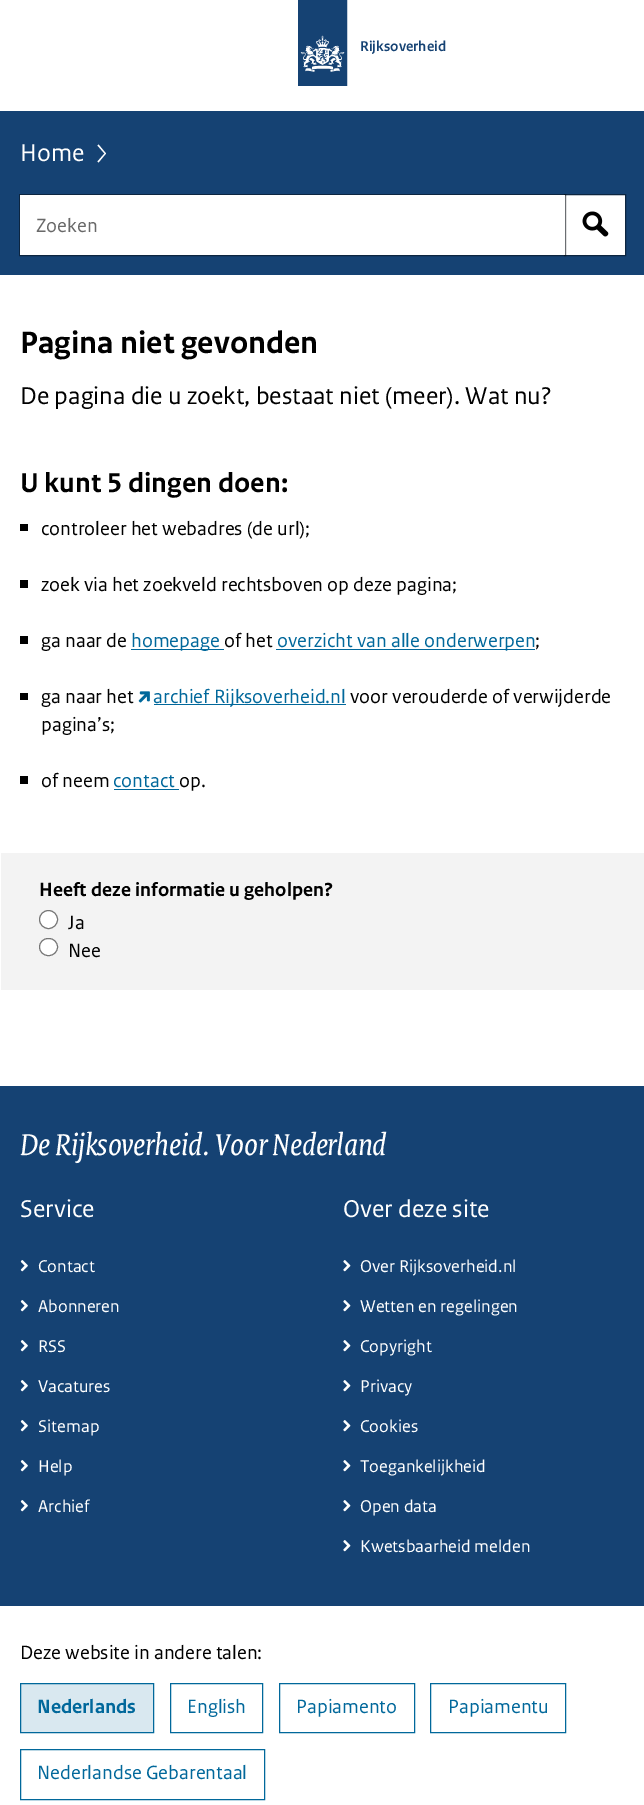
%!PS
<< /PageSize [644 1805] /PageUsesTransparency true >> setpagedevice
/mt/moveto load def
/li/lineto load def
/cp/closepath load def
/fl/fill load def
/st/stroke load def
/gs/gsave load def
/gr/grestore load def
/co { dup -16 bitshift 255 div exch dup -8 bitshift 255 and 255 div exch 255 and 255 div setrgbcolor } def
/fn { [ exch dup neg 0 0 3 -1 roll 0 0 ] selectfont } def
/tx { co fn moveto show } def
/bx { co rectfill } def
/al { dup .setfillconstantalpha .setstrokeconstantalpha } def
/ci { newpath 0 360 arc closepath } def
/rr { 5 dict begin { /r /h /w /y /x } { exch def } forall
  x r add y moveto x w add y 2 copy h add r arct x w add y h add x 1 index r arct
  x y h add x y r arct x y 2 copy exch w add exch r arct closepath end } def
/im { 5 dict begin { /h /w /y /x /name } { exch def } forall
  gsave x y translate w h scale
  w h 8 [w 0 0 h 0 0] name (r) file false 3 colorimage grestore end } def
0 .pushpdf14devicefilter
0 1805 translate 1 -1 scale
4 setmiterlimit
0 0 644 1805 16#FFFFFF bx
(media/1.raw) 298 0 50 86 im
0 111 644 164 16#154273 bx
16#FFFFFF co
98.5 162.5 mt 97.5 161.5 li 104.5 153.5 li 97.5 145.5 li 98.5 144.5 li 106 153.5 li cp fl
564.5 194.5 mt 625.5 194.5 li 625.5 255.5 li 564.5 255.5 li cp gs fl gr
16#0C2540 co
st
0.44 al
16#000000 co
19.5 194.5 546 61 rectstroke
1 al
20 195 545 60 16#FFFFFF bx
(media/2.raw) 582 211 27 26 im
20 524 8 7 16#000000 bx
20 580 8 8 16#000000 bx
20 636 8 8 16#000000 bx
131 649 93 1 16#01689B bx
276 649 259 1 16#01689B bx
20 693 8 7 16#000000 bx
(media/3.raw) 138 691 12 12 im
154 704 192 1 16#01689B bx
20 776 8 8 16#000000 bx
114 789 65 1 16#01689B bx
1 853 643 137 16#F3F3F3 bx
16#FFFFFF co
48.5 919.5 9 ci gs fl gr
16#767676 co
st
16#FFFFFF co
39.5 938.5 18 17 8.5 rr gs fl gr
16#767676 co
st
0 1086 644 520 16#154273 bx
(media/4.raw) 20 1260 8 12 im
(media/4.raw) 20 1300 8 12 im
(media/4.raw) 20 1340 8 12 im
(media/4.raw) 20 1380 8 12 im
(media/4.raw) 20 1420 8 12 im
(media/4.raw) 20 1460 8 12 im
(media/4.raw) 20 1500 8 12 im
(media/5.raw) 343 1260 8 12 im
(media/5.raw) 343 1300 8 12 im
(media/5.raw) 343 1340 8 12 im
(media/5.raw) 343 1380 8 12 im
(media/5.raw) 343 1420 8 12 im
(media/5.raw) 343 1460 8 12 im
(media/5.raw) 343 1500 8 12 im
(media/5.raw) 343 1540 8 12 im
16#D9E8F0 co
20.5 1683.5 mt 153.5 1683.5 li 153.5 1732.5 li 20.5 1732.5 li cp gs fl gr
16#01689B co
st
170.5 1683.5 92 49 rectstroke
279.5 1683.5 135 49 rectstroke
430.5 1683.5 135 49 rectstroke
20.5 1749.5 244 50 rectstroke
(Rijksoverheid) 360 51 /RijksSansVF-SemiBold 15 16#154273 tx
(Home) 20 161 /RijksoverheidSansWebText-Regular 25.6 16#FFFFFF tx
(Zoeken) 36 232 /RijksoverheidSansWebText-Regular 20.25 16#696969 tx
(Pagina niet gevonden) 20 353 /RijksoverheidSansWebText-Bold 32.5 16#000000 tx
(De pagina die u zoekt, bestaat niet \(meer\). Wat nu?) 20 404 /RijksoverheidSansWebText-Regular 25.6 16#000000 tx
(U kunt 5 dingen doen:) 20 492 /RijksoverheidSansWebText-Bold 28.75 16#000000 tx
(controleer het webadres \(de url\);) 41 535 /RijksoverheidSansWebText-Regular 20.25 16#000000 tx
(zoek via het zoekveld rechtsboven op deze pagina;) 41 591 /RijksoverheidSansWebText-Regular 20.25 16#000000 tx
(ga naar de) 41 647 /RijksoverheidSansWebText-Regular 20.25 16#000000 tx
(homepage) 131 647 /RijksoverheidSansWebText-Regular 20.25 16#01689B tx
(of het) 224 647 /RijksoverheidSansWebText-Regular 20.25 16#000000 tx
(overzicht van alle onderwerpen) 277 647 /RijksoverheidSansWebText-Regular 20.25 16#01689B tx
(;) 535 647 /RijksoverheidSansWebText-Regular 20.25 16#000000 tx
(ga naar het) 41 703 /RijksoverheidSansWebText-Regular 20.25 16#000000 tx
(archief Rijksoverheid.nl) 153 703 /RijksoverheidSansWebText-Regular 20.25 16#01689B tx
(voor verouderde of verwijderde) 350 703 /RijksoverheidSansWebText-Regular 20.25 16#000000 tx
(pagina’s;) 41 731 /RijksoverheidSansWebText-Regular 20.25 16#000000 tx
(of neem) 41 787 /RijksoverheidSansWebText-Regular 20.25 16#000000 tx
(contact) 113 787 /RijksoverheidSansWebText-Regular 20.25 16#01689B tx
(op.) 179 787 /RijksoverheidSansWebText-Regular 20.25 16#000000 tx
(Heeft deze informatie u geholpen?) 39 896 /RijksoverheidSansWebText-Bold 20 16#000000 tx
(Ja) 68 929 /RijksoverheidSansWebText-Regular 20.25 16#000000 tx
(Nee) 68 957 /RijksoverheidSansWebText-Regular 20.25 16#000000 tx
(De Rijksoverheid. Voor Nederland) 20 1155 /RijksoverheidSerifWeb-Italic 32.5 16#FFFFFF tx
(Service) 20 1217 /RijksoverheidSansWebText-Regular 25.6 16#FFFFFF tx
(Contact) 38 1272 /RijksoverheidSansWebText-Regular 18 16#FFFFFF tx
(Abonneren) 38 1312 /RijksoverheidSansWebText-Regular 18 16#FFFFFF tx
(RSS) 38 1352 /RijksoverheidSansWebText-Regular 18 16#FFFFFF tx
(Vacatures) 38 1392 /RijksoverheidSansWebText-Regular 18 16#FFFFFF tx
(Sitemap) 38 1432 /RijksoverheidSansWebText-Regular 18 16#FFFFFF tx
(Help) 38 1472 /RijksoverheidSansWebText-Regular 18 16#FFFFFF tx
(Archief) 38 1512 /RijksoverheidSansWebText-Regular 18 16#FFFFFF tx
(Over deze site) 343 1217 /RijksoverheidSansWebText-Regular 25.6 16#FFFFFF tx
(Over Rijksoverheid.nl) 360 1272 /RijksoverheidSansWebText-Regular 18 16#FFFFFF tx
(Wetten en regelingen) 360 1312 /RijksoverheidSansWebText-Regular 18 16#FFFFFF tx
(Copyright) 360 1352 /RijksoverheidSansWebText-Regular 18 16#FFFFFF tx
(Privacy) 360 1392 /RijksoverheidSansWebText-Regular 18 16#FFFFFF tx
(Cookies) 360 1432 /RijksoverheidSansWebText-Regular 18 16#FFFFFF tx
(Toegankelijkheid) 360 1472 /RijksoverheidSansWebText-Regular 18 16#FFFFFF tx
(Open data) 360 1512 /RijksoverheidSansWebText-Regular 18 16#FFFFFF tx
(Kwetsbaarheid melden) 360 1552 /RijksoverheidSansWebText-Regular 18 16#FFFFFF tx
(Deze website in andere talen:) 20 1659 /RijksoverheidSansWebText-Regular 20.25 16#000000 tx
(Nederlands) 37 1713 /RijksoverheidSansWebText-Bold 20.25 16#01689B tx
(English) 187 1713 /RijksoverheidSansWebText-Regular 20.25 16#01689B tx
(Papiamento) 296 1713 /RijksoverheidSansWebText-Regular 20.25 16#01689B tx
(Papiamentu) 448 1713 /RijksoverheidSansWebText-Regular 20.25 16#01689B tx
(Nederlandse Gebarentaal) 37 1779 /RijksoverheidSansWebText-Regular 20.25 16#01689B tx
.poppdf14devicefilter showpage
